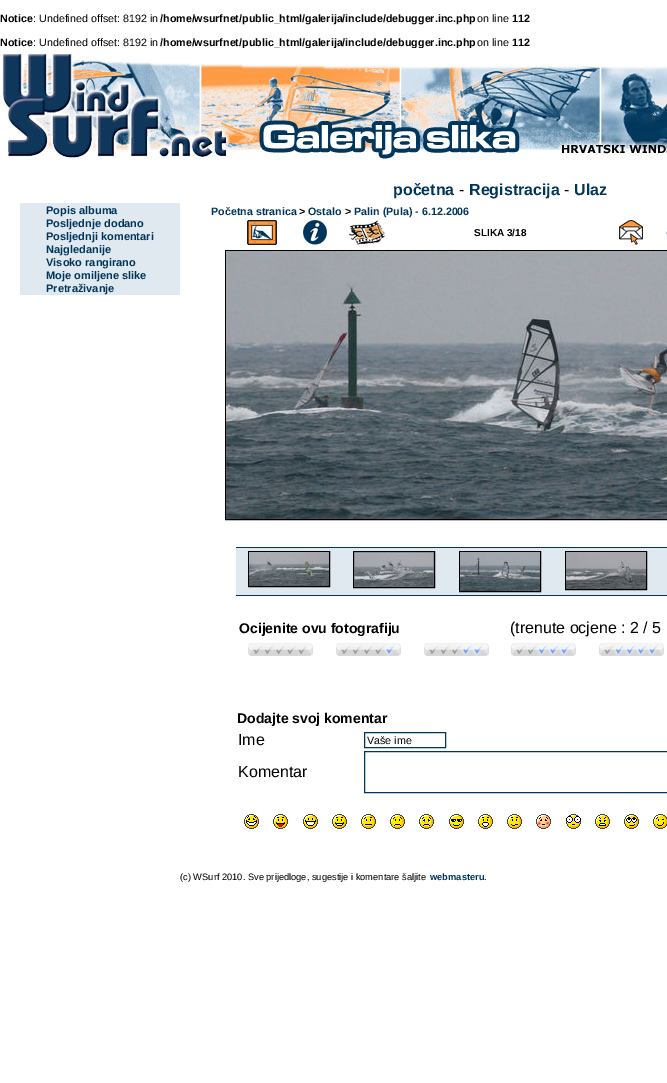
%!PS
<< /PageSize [667 1083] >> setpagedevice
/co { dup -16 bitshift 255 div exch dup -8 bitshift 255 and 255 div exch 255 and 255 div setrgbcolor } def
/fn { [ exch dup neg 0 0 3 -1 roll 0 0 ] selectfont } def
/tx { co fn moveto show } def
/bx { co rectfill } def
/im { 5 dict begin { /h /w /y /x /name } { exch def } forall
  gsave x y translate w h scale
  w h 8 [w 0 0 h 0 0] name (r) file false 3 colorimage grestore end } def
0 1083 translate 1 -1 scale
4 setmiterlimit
0 0 667 1083 16#FFFFFF bx
(media/4.raw) 600 64 67 96 im
20 203 160 92 16#E1E9F0 bx
(media/5.raw) 247 220 30 25 im
(media/6.raw) 303 220 24 25 im
(media/7.raw) 349 220 36 25 im
(media/8.raw) 619 220 24 25 im
(media/9.raw) 666 231 1 4 im
16#000000 co
225.5 250.5 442 269 rectstroke
(media/10.raw) 226 251 441 268 im
236 548 431 47 16#E1E9F0 bx
236 547 431 1 16#00365B bx
236 595 431 1 16#00365B bx
16#000000 co
248.5 551.5 81 35 rectstroke
(media/11.raw) 249 552 80 34 im
353.5 551.5 81 36 rectstroke
(media/12.raw) 354 552 80 35 im
459.5 551.5 81 40 rectstroke
(media/13.raw) 460 552 80 39 im
565.5 551.5 81 38 rectstroke
(media/14.raw) 566 552 80 37 im
(media/15.raw) 248 643 65 13 im
(media/16.raw) 336 643 65 13 im
(media/17.raw) 424 643 65 13 im
(media/18.raw) 511 643 65 13 im
(media/19.raw) 599 643 65 13 im
16#00365B co
364.5 732.5 81 15 rectstroke
364.5 751.5 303 41 rectstroke
(media/20.raw) 244 814 15 15 im
(media/21.raw) 273 814 15 15 im
(media/22.raw) 303 814 15 15 im
(media/23.raw) 332 814 15 15 im
(media/24.raw) 361 814 15 15 im
(media/25.raw) 390 814 15 15 im
(media/26.raw) 419 814 15 15 im
(media/27.raw) 449 814 15 15 im
(media/28.raw) 478 814 15 15 im
(media/29.raw) 507 814 15 15 im
(media/30.raw) 536 814 15 15 im
(media/31.raw) 566 814 15 15 im
(media/32.raw) 595 814 15 15 im
(media/33.raw) 624 814 15 15 im
(media/34.raw) 653 814 14 15 im
(Notice) 0 22 /LiberationSans-Bold 10.7 16#000000 tx
(: Undefined offset: 8192 in) 33 22 /LiberationSans-Regular 10.7 16#000000 tx
(/home/wsurfnet/public_html/galerija/include/debugger.inc.php) 160 22 /LiberationSans-Bold 10.7 16#000000 tx
(on line) 477 22 /LiberationSans-Regular 10.7 16#000000 tx
(112) 512 22 /LiberationSans-Bold 10.7 16#000000 tx
(Notice) 0 46 /LiberationSans-Bold 10.7 16#000000 tx
(: Undefined offset: 8192 in) 33 46 /LiberationSans-Regular 10.7 16#000000 tx
(/home/wsurfnet/public_html/galerija/include/debugger.inc.php) 160 46 /LiberationSans-Bold 10.7 16#000000 tx
(on line) 477 46 /LiberationSans-Regular 10.7 16#000000 tx
(112) 512 46 /LiberationSans-Bold 10.7 16#000000 tx
(media/1.raw) 0 48 200 112 im
(media/2.raw) 200 48 200 112 im
(media/3.raw) 400 48 200 112 im
(Popis albuma) 46 214 /LiberationSans-Bold 11 16#00365B tx
(Posljednje dodano) 46 227 /LiberationSans-Bold 11 16#00365B tx
(Posljednji komentari) 46 240 /LiberationSans-Bold 11 16#00365B tx
(Najgledanije) 46 253 /LiberationSans-Bold 11 16#00365B tx
(Visoko rangirano) 46 266 /LiberationSans-Bold 11 16#00365B tx
(Moje omiljene slike) 46 279 /LiberationSans-Bold 11 16#00365B tx
(Pretraživanje) 46 292 /LiberationSans-Bold 11 16#00365B tx
(početna) 393 195 /LiberationSans-Bold 16 16#00365B tx
(-) 459 195 /LiberationSans-Regular 16 16#000000 tx
(Registracija) 469 195 /LiberationSans-Bold 16 16#00365B tx
(-) 564 195 /LiberationSans-Regular 16 16#000000 tx
(Ulaz) 574 195 /LiberationSans-Bold 16 16#00365B tx
(Početna stranica) 211 215 /LiberationSans-Bold 10.7 16#00365B tx
(>) 299 215 /LiberationSans-Bold 10.7 16#000000 tx
(Ostalo) 308 215 /LiberationSans-Bold 10.7 16#00365B tx
(>) 345 215 /LiberationSans-Bold 10.7 16#000000 tx
(Palin \(Pula\) - 6.12.2006) 354 215 /LiberationSans-Bold 10.7 16#00365B tx
(SLIKA 3/18) 474 236 /LiberationSans-Bold 10 16#000000 tx
(Ocijenite ovu fotografiju) 239 633 /LiberationSans-Bold 14 16#000000 tx
(\(trenute ocjene : 2 / 5) 510 633 /LiberationSans-Regular 16 16#000000 tx
(Dodajte svoj komentar) 237 723 /LiberationSans-Bold 14 16#000000 tx
(Ime) 238 745 /LiberationSans-Regular 16 16#000000 tx
(Vaše ime) 367 744 /LiberationSans-Regular 10.7 16#000000 tx
(Komentar) 238 777 /LiberationSans-Regular 16 16#000000 tx
(\(c\) WSurf 2010. Sve prijedloge, sugestije i komentare šaljite) 180 880 /LiberationSans-Regular 9.3 16#000000 tx
(webmasteru) 430 880 /LiberationSans-Bold 9.3 16#00365B tx
(.) 484 880 /LiberationSans-Regular 9.3 16#000000 tx
showpage
